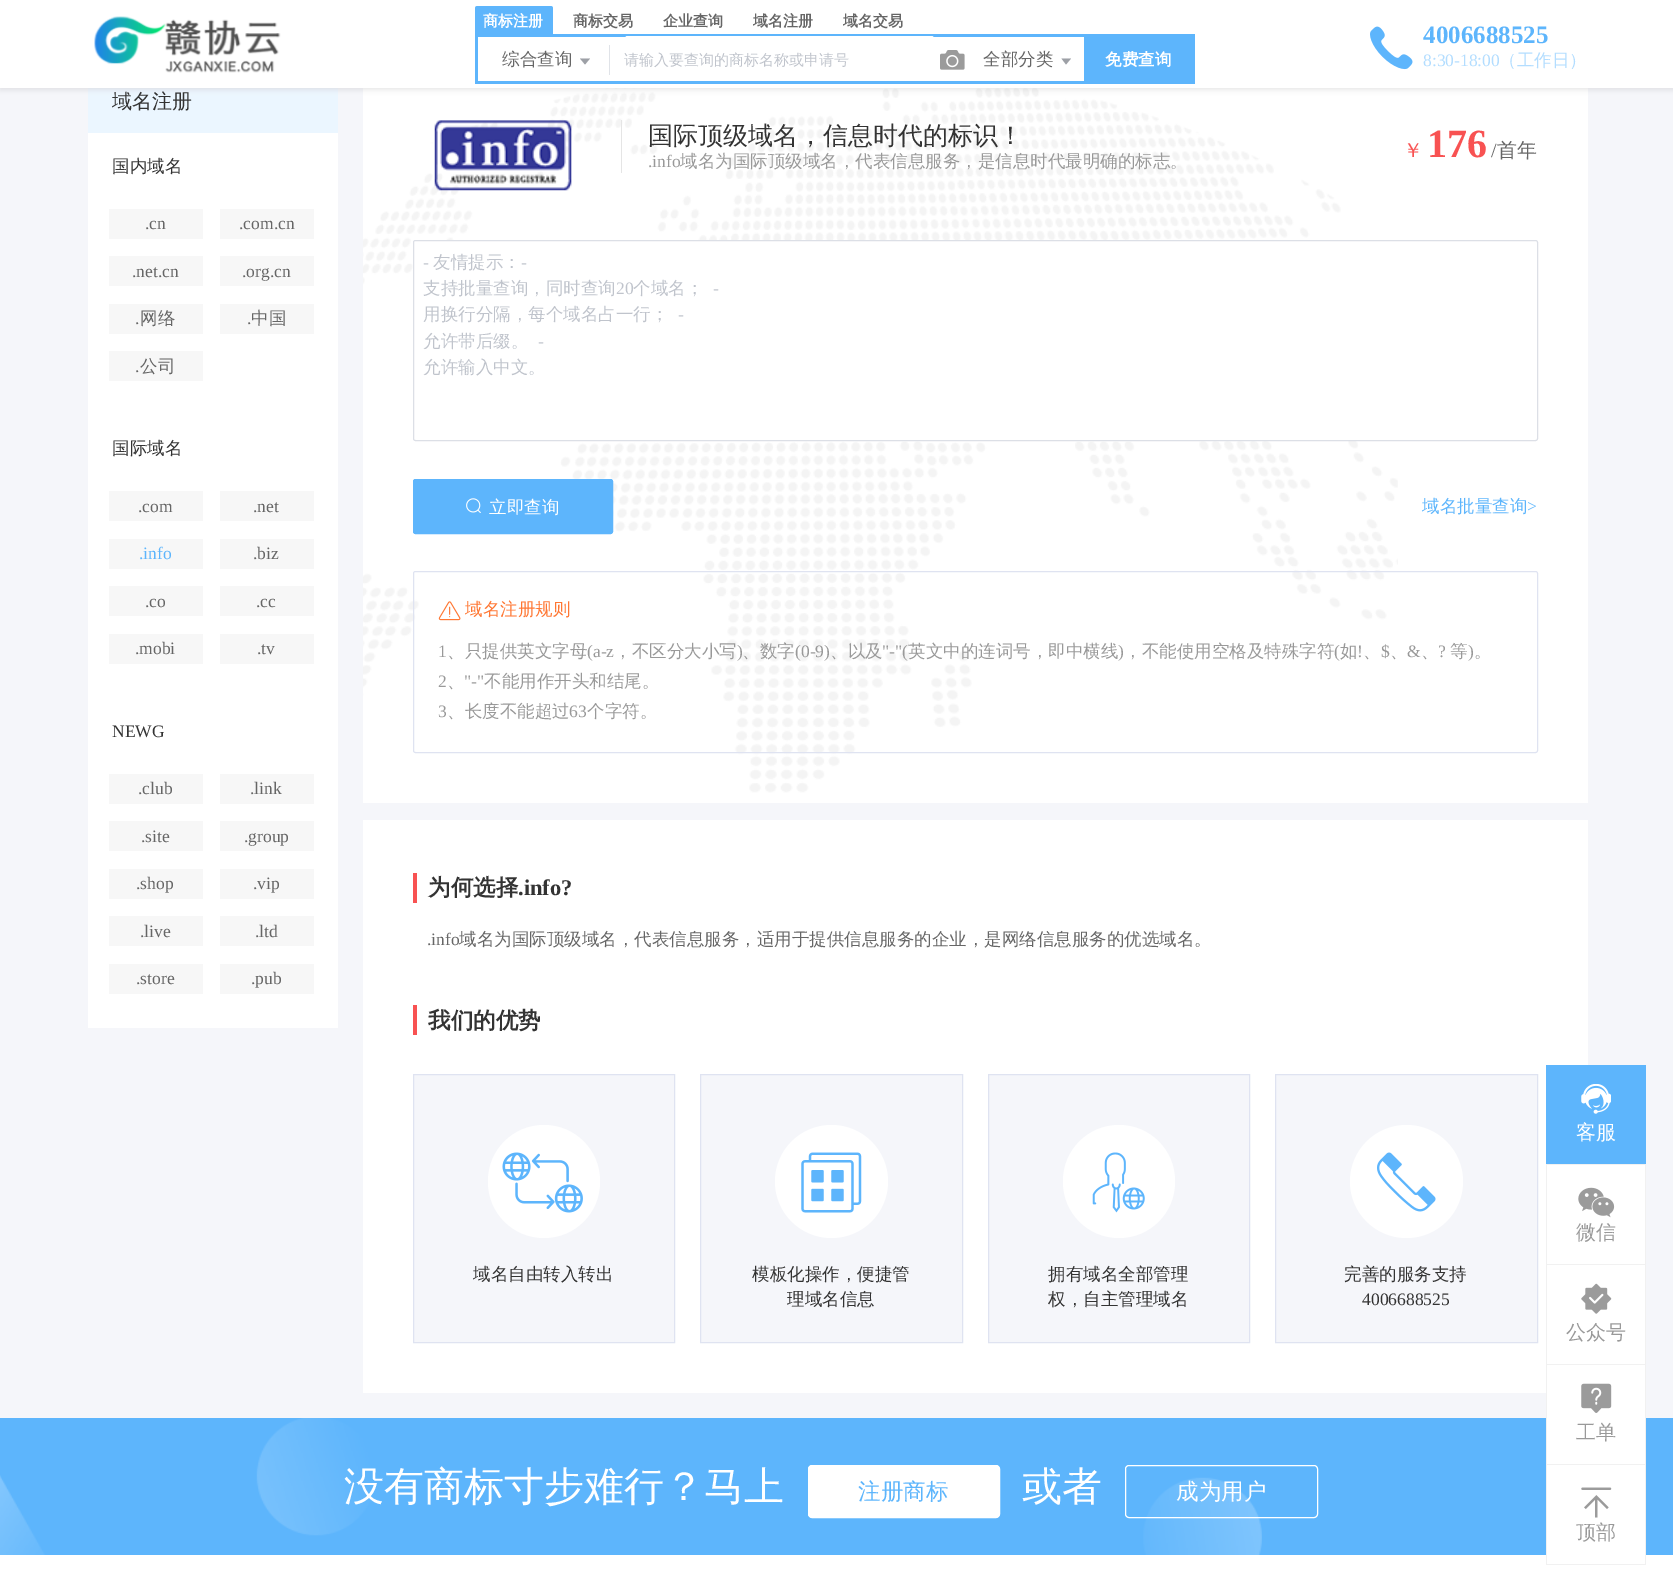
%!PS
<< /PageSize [1673 1589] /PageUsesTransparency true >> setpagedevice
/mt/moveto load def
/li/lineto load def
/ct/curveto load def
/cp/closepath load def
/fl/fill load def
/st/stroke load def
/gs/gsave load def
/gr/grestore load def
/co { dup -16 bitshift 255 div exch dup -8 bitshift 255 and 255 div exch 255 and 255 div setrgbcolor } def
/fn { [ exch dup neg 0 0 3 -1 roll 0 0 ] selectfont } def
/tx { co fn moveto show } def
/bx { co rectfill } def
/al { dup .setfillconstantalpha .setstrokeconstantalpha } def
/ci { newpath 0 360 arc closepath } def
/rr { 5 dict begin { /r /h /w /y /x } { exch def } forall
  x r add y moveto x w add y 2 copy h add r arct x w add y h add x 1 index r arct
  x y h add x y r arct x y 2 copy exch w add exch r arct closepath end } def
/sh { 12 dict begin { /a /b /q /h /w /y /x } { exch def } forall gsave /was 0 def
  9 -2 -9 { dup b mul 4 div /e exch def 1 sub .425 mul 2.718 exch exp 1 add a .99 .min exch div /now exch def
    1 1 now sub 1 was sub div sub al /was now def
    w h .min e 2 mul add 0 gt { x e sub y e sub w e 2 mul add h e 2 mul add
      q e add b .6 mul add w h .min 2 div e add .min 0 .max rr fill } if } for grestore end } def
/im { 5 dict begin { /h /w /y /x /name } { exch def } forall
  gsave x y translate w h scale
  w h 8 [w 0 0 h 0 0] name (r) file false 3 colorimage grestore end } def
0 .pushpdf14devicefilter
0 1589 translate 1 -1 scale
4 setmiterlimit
0 0 1673 1589 16#F5F6FA bx
88 88 250 45 16#EBF6FF bx
363 88 1225 715 16#FFFFFF bx
(media/4.raw) 363 88 1035 705 im
16#D0D0D0 co
0 3 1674 87 0 2.5 .5 sh
0 0 1673 88 16#FFFFFF bx
(media/1.raw) 94 16 187 57 im
16#5DB5FC co
477.5 6 mt 550.5 6 li 552 6 553 7 553 8.5 ct 553 34 li 475 34 li 475 8.5 li 475 7 476 6 477.5 6 ct cp fl
475 34 720 3 16#5DB5FC bx
475 81 609 3 16#5DB5FC bx
475 34 3 50 16#5DB5FC bx
609 45 1 30 16#E0E3E8 bx
16#9DA0A6 co
580 58.5 mt 590 58.5 li 585 64.5 li cp fl
16#FFFFFF co
625 36 309 45 2.5 rr fl
(media/2.raw) 940 50 25 20 im
16#9DA0A6 co
1061.5 58.5 mt 1071 58.5 li 1066 64.5 li cp fl
1084 37 111 47 16#5DB5FC bx
(media/3.raw) 1370 26 43 44 im
88 133 250 895 16#FFFFFF bx
109 209 94 30 16#F7F7F7 bx
220 209 94 30 16#F7F7F7 bx
109 256 94 30 16#F7F7F7 bx
220 256 94 30 16#F7F7F7 bx
109 304 94 30 16#F7F7F7 bx
220 304 94 30 16#F7F7F7 bx
109 351 94 30 16#F7F7F7 bx
109 491 94 30 16#F7F7F7 bx
220 491 94 30 16#F7F7F7 bx
109 539 94 30 16#F7F7F7 bx
220 539 94 30 16#F7F7F7 bx
109 586 94 30 16#F7F7F7 bx
220 586 94 30 16#F7F7F7 bx
109 634 94 30 16#F7F7F7 bx
220 634 94 30 16#F7F7F7 bx
109 774 94 30 16#F7F7F7 bx
220 774 94 30 16#F7F7F7 bx
109 821 94 30 16#F7F7F7 bx
220 821 94 30 16#F7F7F7 bx
109 869 94 30 16#F7F7F7 bx
220 869 94 30 16#F7F7F7 bx
109 916 94 30 16#F7F7F7 bx
220 916 94 30 16#F7F7F7 bx
109 964 94 30 16#F7F7F7 bx
220 964 94 30 16#F7F7F7 bx
(media/5.raw) 434 120 138 71 im
621 120 1 53 16#E5E5E5 bx
16#FFFFFF co
413.5 240.5 1124 200 2 rr gs fl gr
16#DCDFE6 co
st
16#5DB5FC co
413.5 479.5 199 54 2 rr gs fl gr
st
(media/6.raw) 466 498 15 15 im
16#DFE3F1 co
413.5 571.5 1124 181 2 rr st
(media/7.raw) 438 601 23 20 im
363 820 1225 573 16#FFFFFF bx
413 873 4 30 16#F85252 bx
413 1005 4 30 16#F85252 bx
16#F5F6FA co
413.5 1074.5 mt 674.5 1074.5 li 674.5 1342.5 li 413.5 1342.5 li cp gs fl gr
16#DFE3F1 co
st
16#FFFFFF co
488 1125 112 113 56 rr fl
(media/8.raw) 502 1152 81 61 im
16#F5F6FA co
700.5 1074.5 mt 962.5 1074.5 li 962.5 1342.5 li 700.5 1342.5 li cp gs fl gr
16#DFE3F1 co
st
16#FFFFFF co
831.5 1181.5 56.5 ci fl
(media/9.raw) 801 1152 61 61 im
16#F5F6FA co
988.5 1074.5 mt 1249.5 1074.5 li 1249.5 1342.5 li 988.5 1342.5 li cp gs fl gr
16#DFE3F1 co
st
16#FFFFFF co
1063 1125 112 113 56 rr fl
(media/10.raw) 1092 1152 53 61 im
16#F5F6FA co
1275.5 1074.5 mt 1537.5 1074.5 li 1537.5 1342.5 li 1275.5 1342.5 li cp gs fl gr
16#DFE3F1 co
st
16#FFFFFF co
1406.5 1181.5 56.5 ci fl
(media/11.raw) 1377 1152 59 60 im
0 1555 1673 34 16#FFFFFF bx
0 1418 1673 137 16#5DB5FC bx
(media/12.raw) 0 1418 1262 137 im
16#FFFFFF co
808.5 1465.5 191 52 3.5 rr gs fl gr
st
1125.5 1465.5 192 52 3.5 rr st
1546 1065 100 99 16#5DB5FC bx
1546 1164 100 1 16#F1F1F1 bx
(media/13.raw) 1581 1084 30 30 im
1588 1165 57 99 16#FFFFFF bx
1645 1165 1 400 16#F1F1F1 bx
1546 1264 100 1 16#F1F1F1 bx
1546 1165 1 100 16#F1F1F1 bx
(media/14.raw) 1578 1187 37 31 im
1588 1265 57 99 16#FFFFFF bx
1546 1364 100 1 16#F1F1F1 bx
1546 1265 1 100 16#F1F1F1 bx
(media/15.raw) 1581 1283 31 31 im
1547 1365 98 99 16#FFFFFF bx
1546 1464 100 1 16#F1F1F1 bx
1546 1365 1 100 16#F1F1F1 bx
(media/16.raw) 1581 1383 31 30 im
1547 1465 98 90 16#FFFFFF bx
1546 1564 100 1 16#F1F1F1 bx
1546 1465 1 100 16#F1F1F1 bx
(media/17.raw) 1581 1487 31 31 im
(商标注册) 483 26 /WenQuanYiZenHei-Bold 15 16#FFFFFF tx
(商标交易) 573 26 /WenQuanYiZenHei-Bold 15 16#666666 tx
(企业查询) 663 26 /WenQuanYiZenHei-Bold 15 16#666666 tx
(域名注册) 753 26 /WenQuanYiZenHei-Bold 15 16#666666 tx
(域名交易) 843 26 /WenQuanYiZenHei-Bold 15 16#666666 tx
(综合查询) 502 65 /WenQuanYiZenHei-Medium 17.5 16#666666 tx
(请输入要查询的商标名称或申请号) 624 65 /WenQuanYiZenHei-Medium 15 16#C0C4CC tx
(全部分类) 983 65 /WenQuanYiZenHei-Medium 17.5 16#666666 tx
(免费查询) 1105 65 /WenQuanYiZenHei-Bold 16.5 16#FFFFFF tx
(4006688525) 1423 43 /LiberationSerif-Bold 25 16#5DB5FC tx
(8:30-18:00) 1423 66 /LiberationSerif-Regular 17.5 16#B3DDFF tx
(（工作日）) 1499 66 /WenQuanYiZenHei-Medium 17.5 16#B3DDFF tx
(域名注册) 112 108 /WenQuanYiZenHei-Medium 20 16#333333 tx
(国内域名) 112 172 /WenQuanYiZenHei-Medium 17.5 16#333333 tx
(.cn) 145 229 /LiberationSerif-Regular 17.5 16#666666 tx
(.com.cn) 239 229 /LiberationSerif-Regular 17.5 16#666666 tx
(.net.cn) 132 277 /LiberationSerif-Regular 17.5 16#666666 tx
(.org.cn) 242 277 /LiberationSerif-Regular 17.5 16#666666 tx
(.) 135 324 /LiberationSerif-Regular 17.5 16#666666 tx
(网络) 140 324 /WenQuanYiZenHei-Medium 17.5 16#666666 tx
(.) 247 324 /LiberationSerif-Regular 17.5 16#666666 tx
(中国) 251 324 /WenQuanYiZenHei-Medium 17.5 16#666666 tx
(.) 135 372 /LiberationSerif-Regular 17.5 16#666666 tx
(公司) 140 372 /WenQuanYiZenHei-Medium 17.5 16#666666 tx
(国际域名) 112 454 /WenQuanYiZenHei-Medium 17.5 16#333333 tx
(.com) 138 512 /LiberationSerif-Regular 17.5 16#666666 tx
(.net) 253 512 /LiberationSerif-Regular 17.5 16#666666 tx
(.info) 139 559 /LiberationSerif-Regular 17.5 16#5DB5FC tx
(.biz) 253 559 /LiberationSerif-Regular 17.5 16#666666 tx
(.co) 145 607 /LiberationSerif-Regular 17.5 16#666666 tx
(.cc) 256 607 /LiberationSerif-Regular 17.5 16#666666 tx
(.mobi) 135 654 /LiberationSerif-Regular 17.5 16#666666 tx
(.tv) 257 654 /LiberationSerif-Regular 17.5 16#666666 tx
(NEWG) 112 737 /LiberationSerif-Regular 17.5 16#333333 tx
(.club) 138 794 /LiberationSerif-Regular 17.5 16#666666 tx
(.link) 250 794 /LiberationSerif-Regular 17.5 16#666666 tx
(.site) 141 842 /LiberationSerif-Regular 17.5 16#666666 tx
(.group) 244 842 /LiberationSerif-Regular 17.5 16#666666 tx
(.shop) 136 889 /LiberationSerif-Regular 17.5 16#666666 tx
(.vip) 253 889 /LiberationSerif-Regular 17.5 16#666666 tx
(.live) 140 937 /LiberationSerif-Regular 17.5 16#666666 tx
(.ltd) 255 937 /LiberationSerif-Regular 17.5 16#666666 tx
(.store) 136 984 /LiberationSerif-Regular 17.5 16#666666 tx
(.pub) 251 984 /LiberationSerif-Regular 17.5 16#666666 tx
(国际顶级域名，信息时代的标识！) 648 144 /WenQuanYiZenHei-Medium 25 16#333333 tx
(.info) 648 167 /LiberationSerif-Regular 17.5 16#999999 tx
(域名为国际顶级域名，代表信息服务，是信息时代最明确的标志。) 680 167 /WenQuanYiZenHei-Medium 17.5 16#999999 tx
(￥) 1403 157 /WenQuanYiZenHei-Medium 20 16#F85252 tx
(176) 1427 157 /LiberationSerif-Bold 40 16#F85252 tx
(/) 1491 157 /LiberationSerif-Regular 20 16#666666 tx
(首年) 1497 157 /WenQuanYiZenHei-Medium 20 16#666666 tx
(-) 423 268 /LiberationSerif-Regular 17.5 16#C0C4CC tx
(友情提示：) 433 268 /WenQuanYiZenHei-Medium 17.5 16#C0C4CC tx
(-) 521 268 /LiberationSerif-Regular 17.5 16#C0C4CC tx
(支持批量查询，同时查询) 423 294 /WenQuanYiZenHei-Medium 17.5 16#C0C4CC tx
(20) 616 294 /LiberationSerif-Regular 17.5 16#C0C4CC tx
(个域名；) 633 294 /WenQuanYiZenHei-Medium 17.5 16#C0C4CC tx
(-) 713 294 /LiberationSerif-Regular 17.5 16#C0C4CC tx
(用换行分隔，每个域名占一行；) 423 320 /WenQuanYiZenHei-Medium 17.5 16#C0C4CC tx
(-) 678 320 /LiberationSerif-Regular 17.5 16#C0C4CC tx
(允许带后缀。) 423 347 /WenQuanYiZenHei-Medium 17.5 16#C0C4CC tx
(-) 538 347 /LiberationSerif-Regular 17.5 16#C0C4CC tx
(允许输入中文。) 423 373 /WenQuanYiZenHei-Medium 17.5 16#C0C4CC tx
(立即查询) 489 513 /WenQuanYiZenHei-Medium 17.5 16#FFFFFF tx
(域名批量查询) 1422 512 /WenQuanYiZenHei-Medium 17.5 16#5DB5FC tx
(>) 1527 512 /LiberationSerif-Regular 17.5 16#5DB5FC tx
(域名注册规则) 465 615 /WenQuanYiZenHei-Medium 17.5 16#FF7733 tx
(1) 438 657 /LiberationSerif-Regular 17.5 16#999999 tx
(、只提供英文字母) 447 657 /WenQuanYiZenHei-Medium 17.5 16#999999 tx
(\(a-z) 587 657 /LiberationSerif-Regular 17.5 16#999999 tx
(，不区分大小写) 614 657 /WenQuanYiZenHei-Medium 17.5 16#999999 tx
(\)) 737 657 /LiberationSerif-Regular 17.5 16#999999 tx
(、数字) 742 657 /WenQuanYiZenHei-Medium 17.5 16#999999 tx
(\(0-9\)) 795 657 /LiberationSerif-Regular 17.5 16#999999 tx
(、以及) 830 657 /WenQuanYiZenHei-Medium 17.5 16#999999 tx
("-"\() 882 657 /LiberationSerif-Regular 17.5 16#999999 tx
(英文中的连词号，即中横线) 908 657 /WenQuanYiZenHei-Medium 17.5 16#999999 tx
(\)) 1118 657 /LiberationSerif-Regular 17.5 16#999999 tx
(，不能使用空格及特殊字符) 1124 657 /WenQuanYiZenHei-Medium 17.5 16#999999 tx
(\() 1334 657 /LiberationSerif-Regular 17.5 16#999999 tx
(如) 1340 657 /WenQuanYiZenHei-Medium 17.5 16#999999 tx
(!) 1357 657 /LiberationSerif-Regular 17.5 16#999999 tx
(、) 1363 657 /WenQuanYiZenHei-Medium 17.5 16#999999 tx
($) 1381 657 /LiberationSerif-Regular 17.5 16#999999 tx
(、) 1390 657 /WenQuanYiZenHei-Medium 17.5 16#999999 tx
(&) 1407 657 /LiberationSerif-Regular 17.5 16#999999 tx
(、) 1421 657 /WenQuanYiZenHei-Medium 17.5 16#999999 tx
(?) 1438 657 /LiberationSerif-Regular 17.5 16#999999 tx
(等) 1450 657 /WenQuanYiZenHei-Medium 17.5 16#999999 tx
(\)) 1468 657 /LiberationSerif-Regular 17.5 16#999999 tx
(。) 1474 657 /WenQuanYiZenHei-Medium 17.5 16#999999 tx
(2) 438 687 /LiberationSerif-Regular 17.5 16#999999 tx
("-") 464 687 /LiberationSerif-Regular 17.5 16#999999 tx
(不能用作开头和结尾。) 484 687 /WenQuanYiZenHei-Medium 17.5 16#999999 tx
(、) 447 687 /WenQuanYiZenHei-Medium 17.5 16#999999 tx
(3) 438 717 /LiberationSerif-Regular 17.5 16#999999 tx
(、长度不能超过) 447 717 /WenQuanYiZenHei-Medium 17.5 16#999999 tx
(63) 569 717 /LiberationSerif-Regular 17.5 16#999999 tx
(个字符。) 587 717 /WenQuanYiZenHei-Medium 17.5 16#999999 tx
(为何选择) 428 895 /WenQuanYiZenHei-Bold 22.5 16#333333 tx
(.info?) 518 895 /LiberationSerif-Bold 22.5 16#333333 tx
(.info) 427 945 /LiberationSerif-Regular 17.5 16#666666 tx
(域名为国际顶级域名，代表信息服务，适用于提供信息服务的企业，是网络信息服务的优选域名。) 459 945 /WenQuanYiZenHei-Medium 17.5 16#666666 tx
(我们的优势) 428 1028 /WenQuanYiZenHei-Bold 22.5 16#333333 tx
(域名自由转入转出) 473 1280 /WenQuanYiZenHei-Medium 17.5 16#333333 tx
(模板化操作，便捷管) 752 1280 /WenQuanYiZenHei-Medium 17.5 16#333333 tx
(理域名信息) 787 1305 /WenQuanYiZenHei-Medium 17.5 16#333333 tx
(拥有域名全部管理) 1048 1280 /WenQuanYiZenHei-Medium 17.5 16#333333 tx
(权，自主管理域名) 1048 1305 /WenQuanYiZenHei-Medium 17.5 16#333333 tx
(完善的服务支持) 1344 1280 /WenQuanYiZenHei-Medium 17.5 16#333333 tx
(4006688525) 1362 1305 /LiberationSerif-Regular 17.5 16#333333 tx
(没有商标寸步难行？马上) 344 1500 /WenQuanYiZenHei-Medium 40 16#FFFFFF tx
(注册商标) 858 1499 /WenQuanYiZenHei-Medium 22.5 16#5DB5FC tx
(或者) 1022 1500 /WenQuanYiZenHei-Medium 40 16#FFFFFF tx
(成为用户) 1176 1499 /WenQuanYiZenHei-Medium 22.5 16#FFFFFF tx
(客服) 1576 1139 /WenQuanYiZenHei-Medium 20 16#FFFFFF tx
(微信) 1576 1239 /WenQuanYiZenHei-Medium 20 16#999999 tx
(公众号) 1566 1339 /WenQuanYiZenHei-Medium 20 16#999999 tx
(工单) 1576 1439 /WenQuanYiZenHei-Medium 20 16#999999 tx
(顶部) 1576 1539 /WenQuanYiZenHei-Medium 20 16#999999 tx
.poppdf14devicefilter showpage
